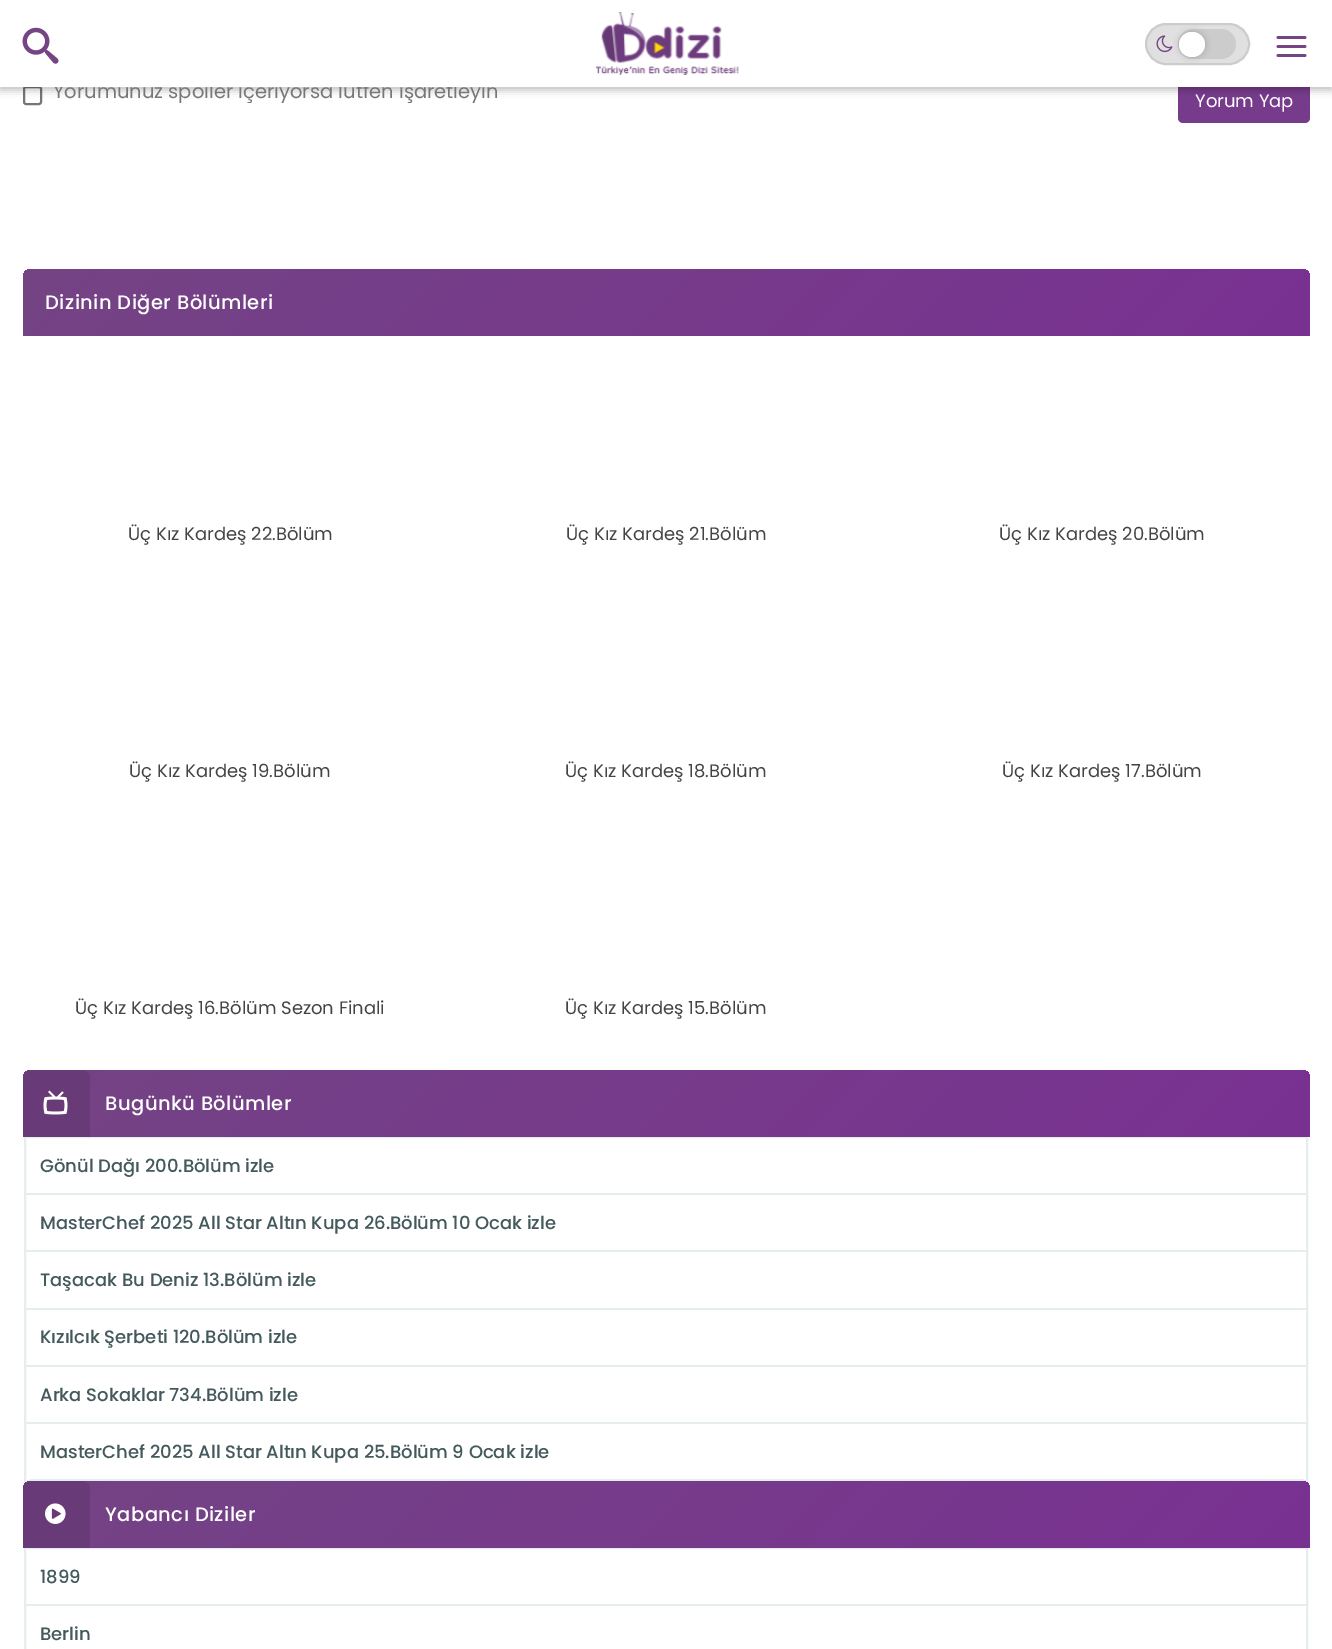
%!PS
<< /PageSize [1332 1649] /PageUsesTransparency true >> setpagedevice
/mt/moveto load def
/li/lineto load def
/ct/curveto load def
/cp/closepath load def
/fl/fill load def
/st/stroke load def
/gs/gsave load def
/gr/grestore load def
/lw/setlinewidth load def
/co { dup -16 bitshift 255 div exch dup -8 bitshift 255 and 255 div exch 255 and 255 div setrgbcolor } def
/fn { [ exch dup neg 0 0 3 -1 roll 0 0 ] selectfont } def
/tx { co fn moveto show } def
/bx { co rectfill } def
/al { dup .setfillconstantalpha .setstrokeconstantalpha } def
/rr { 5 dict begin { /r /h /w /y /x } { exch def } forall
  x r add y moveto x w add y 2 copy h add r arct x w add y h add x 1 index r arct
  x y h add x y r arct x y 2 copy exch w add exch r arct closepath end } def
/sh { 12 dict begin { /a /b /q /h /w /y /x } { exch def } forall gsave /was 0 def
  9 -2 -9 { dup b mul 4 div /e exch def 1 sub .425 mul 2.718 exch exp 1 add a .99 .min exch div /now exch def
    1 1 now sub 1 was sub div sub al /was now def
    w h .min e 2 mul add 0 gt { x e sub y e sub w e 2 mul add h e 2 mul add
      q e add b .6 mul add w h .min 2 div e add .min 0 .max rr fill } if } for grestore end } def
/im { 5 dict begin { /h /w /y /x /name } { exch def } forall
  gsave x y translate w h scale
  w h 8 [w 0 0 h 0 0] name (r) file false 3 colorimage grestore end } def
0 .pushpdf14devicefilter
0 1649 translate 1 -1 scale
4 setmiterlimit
0 0 1332 1649 16#FFFFFF bx
16#767676 co
2 lw
24 87 17 17 2 rr st
16#773B8B co
1178 78 132 45 5 rr fl
16#000000 co
0 3 1332 87 0 4 .26 sh
gs 31 269 mt 1302 269 li 1306.5 269 1310 272.5 1310 277 ct 1310 336 li 23 336 li 23 277 li 23 272.5 26.5 269 31 269 ct cp clip newpath
<< /ShadingType 2 /ColorSpace /DeviceRGB /Coords [327 -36 1005 641] /Extend [true true] /Function << /FunctionType 2 /Domain [0 1] /C0 [.455 .267 .518] /C1 [.478 .192 .573] /N 1 >> >> shfill gr
16#E5EDEE co
25 1137 1282 344 rectstroke
gs 31 1070 mt 1302 1070 li 1306.5 1070 1310 1073.5 1310 1078 ct 1310 1137 li 23 1137 li 23 1078 li 23 1073.5 26.5 1070 31 1070 ct cp clip newpath
<< /ShadingType 2 /ColorSpace /DeviceRGB /Coords [327 765 1005 1442] /Extend [true true] /Function << /FunctionType 2 /Domain [0 1] /C0 [.455 .267 .518] /C1 [.478 .192 .573] /N 1 >> >> shfill gr
16#693A78 co
31 1070 mt 82 1070 li 86.5 1070 90 1073.5 90 1078 ct 90 1137 li 23 1137 li 23 1078 li 23 1073.5 26.5 1070 31 1070 ct cp fl
(media/5.raw) 43 1090 25 25 im
26 1193 1281 2 16#E5EDEE bx
26 1250 1281 2 16#E5EDEE bx
26 1308 1281 2 16#E5EDEE bx
26 1365 1281 2 16#E5EDEE bx
26 1422 1281 2 16#E5EDEE bx
30 1479 1274 1 16#E5EDEE bx
25 1548 1282 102 rectstroke
gs 31 1481 mt 1302 1481 li 1306.5 1481 1310 1484.5 1310 1489 ct 1310 1548 li 23 1548 li 23 1489 li 23 1484.5 26.5 1481 31 1481 ct cp clip newpath
<< /ShadingType 2 /ColorSpace /DeviceRGB /Coords [327 1176 1005 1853] /Extend [true true] /Function << /FunctionType 2 /Domain [0 1] /C0 [.455 .267 .518] /C1 [.478 .192 .573] /N 1 >> >> shfill gr
16#693A78 co
31 1481 mt 82 1481 li 86.5 1481 90 1484.5 90 1489 ct 90 1548 li 23 1548 li 23 1489 li 23 1484.5 26.5 1481 31 1481 ct cp fl
(media/6.raw) 45 1503 21 21 im
26 1604 1281 2 16#E5EDEE bx
(Yorumunuz spoiler içeriyorsa lütfen işaretleyin) 53 98 /Poppins-Regular 19.5 16#777777 tx
0 0 1332 87 16#FFFFFF bx
(media/4.raw) 1276 36 31 21 im
16#E0E0E0 co
1146 24 103 40 20 rr gs fl gr
16#CCCCCC co
st
1178 29 58 30 15 rr fl
(media/3.raw) 1156 35 17 18 im
16#000000 co
1179 32 26 25 12.5 3 .2 sh
16#FFFFFF co
1179 32 26 25 12.5 rr fl
(media/1.raw) 22 27 37 37 im
(media/2.raw) 595 12 144 63 im
(Yorum Yap) 1195 107 /Poppins-Regular 18 16#FFFFFF tx
/Poppins-Medium 19.5 fn
45 309 mt .45 0 (Dizinin Diğer Bölümleri) ashow
(Üç Kız Kardeş 22.Bölüm) 128 540 /Poppins-Regular 18 16#444444 tx
(Üç Kız Kardeş 21.Bölüm) 566 540 /Poppins-Regular 18 16#444444 tx
(Üç Kız Kardeş 20.Bölüm) 999 540 /Poppins-Regular 18 16#444444 tx
(Üç Kız Kardeş 19.Bölüm) 129 777 /Poppins-Regular 18 16#444444 tx
(Üç Kız Kardeş 18.Bölüm) 565 777 /Poppins-Regular 18 16#444444 tx
(Üç Kız Kardeş 17.Bölüm) 1002 777 /Poppins-Regular 18 16#444444 tx
(Üç Kız Kardeş 16.Bölüm Sezon Finali) 75 1014 /Poppins-Regular 18 16#444444 tx
(Üç Kız Kardeş 15.Bölüm) 565 1014 /Poppins-Regular 18 16#444444 tx
/Poppins-Medium 19.5 fn
16#FFFFFF co
105 1110 mt .45 0 (Bugünkü Bölümler) ashow
(Gönül Dağı 200.Bölüm izle) 40 1172 /Poppins-Medium 18 16#44595B tx
(MasterChef 2025 All Star Altın Kupa 26.Bölüm 10 Ocak izle) 40 1229 /Poppins-Medium 18 16#44595B tx
(Taşacak Bu Deniz 13.Bölüm izle) 40 1286 /Poppins-Medium 18 16#44595B tx
(Kızılcık Şerbeti 120.Bölüm izle) 40 1343 /Poppins-Medium 18 16#44595B tx
(Arka Sokaklar 734.Bölüm izle) 40 1401 /Poppins-Medium 18 16#44595B tx
(MasterChef 2025 All Star Altın Kupa 25.Bölüm 9 Ocak izle) 40 1458 /Poppins-Medium 18 16#44595B tx
/Poppins-Medium 19.5 fn
16#FFFFFF co
105 1521 mt .45 0 (Yabancı Diziler) ashow
(1899) 40 1583 /Poppins-Medium 18 16#44595B tx
(Berlin) 40 1640 /Poppins-Medium 18 16#44595B tx
.poppdf14devicefilter showpage
